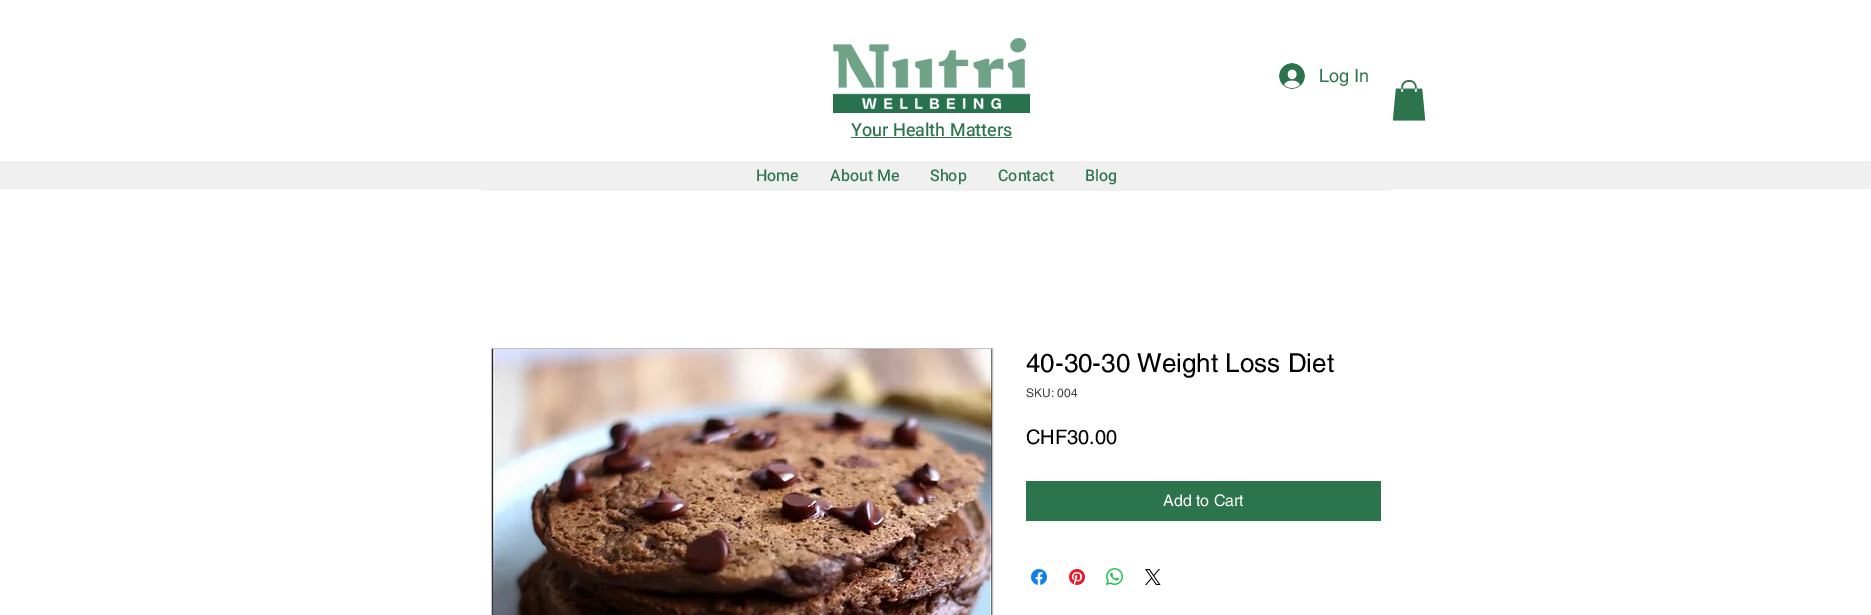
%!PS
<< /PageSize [1871 615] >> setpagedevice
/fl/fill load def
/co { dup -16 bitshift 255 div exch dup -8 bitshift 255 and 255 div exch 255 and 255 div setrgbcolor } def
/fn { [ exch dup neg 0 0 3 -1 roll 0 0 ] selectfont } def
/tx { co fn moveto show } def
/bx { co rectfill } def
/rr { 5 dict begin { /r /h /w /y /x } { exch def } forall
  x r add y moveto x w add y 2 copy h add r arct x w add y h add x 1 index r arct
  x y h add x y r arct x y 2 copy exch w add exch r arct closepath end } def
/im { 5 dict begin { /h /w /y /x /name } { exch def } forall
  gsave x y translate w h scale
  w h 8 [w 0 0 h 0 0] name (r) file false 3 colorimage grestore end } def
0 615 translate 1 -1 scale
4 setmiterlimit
0 0 1871 615 16#FFFFFF bx
(media/1.raw) 1279 63 26 26 im
(media/2.raw) 1392 80 34 41 im
(media/3.raw) 833 38 197 75 im
851 137 161 1 16#2C744C bx
0 161 1871 28 16#F0F0F0 bx
476 161 920 30 10 rr fl
16#BFBFBF co
491.5 348.5 501 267 rectstroke
(media/4.raw) 492 349 500 266 im
1026 481 355 40 16#2C744C bx
(media/5.raw) 1031 569 16 16 im
(media/6.raw) 1069 569 16 16 im
(media/7.raw) 1106 568 17 17 im
(media/8.raw) 1145 569 16 16 im
(Log In) 1319 82 /helvetica-Regular 18 16#2C744C tx
(Your Health Matters) 851 136 /Heebo-Medium 18 16#2C744C tx
(Home) 756 181 /Heebo-Medium 16 16#2C744C tx
(About Me) 830 181 /Heebo-Medium 16 16#2C744C tx
(Shop) 930 181 /Heebo-Medium 16 16#2C744C tx
(Contact) 998 181 /Heebo-Medium 16 16#2C744C tx
(Blog) 1085 181 /Heebo-Medium 16 16#2C744C tx
(40-30-30 Weight Loss Diet) 1026 372 /helvetica-Regular 26 16#000000 tx
(SKU: 004) 1026 397 /helvetica-Regular 12 16#404040 tx
(CHF30.00) 1026 444 /helvetica-Regular 20 16#000000 tx
(Add to Cart) 1163 506 /helvetica-Regular 16 16#FFFFFF tx
showpage
